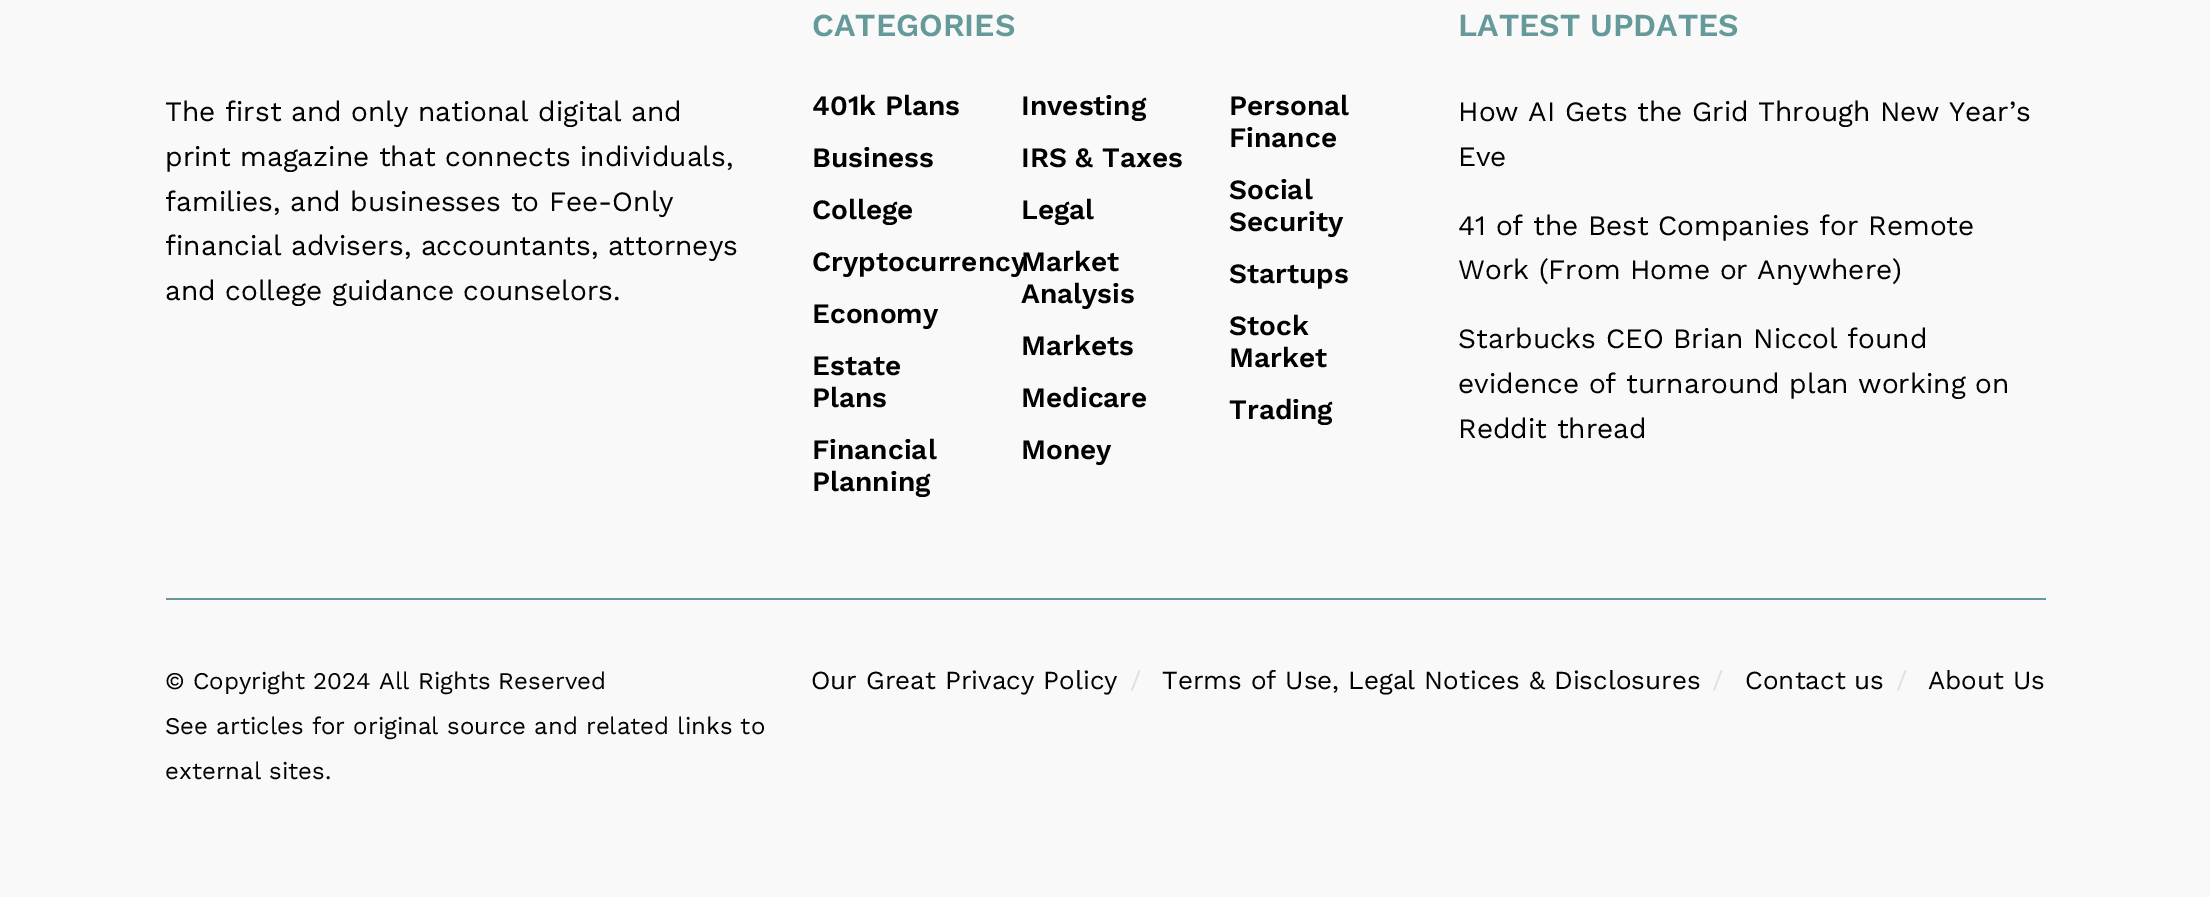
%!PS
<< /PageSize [2210 897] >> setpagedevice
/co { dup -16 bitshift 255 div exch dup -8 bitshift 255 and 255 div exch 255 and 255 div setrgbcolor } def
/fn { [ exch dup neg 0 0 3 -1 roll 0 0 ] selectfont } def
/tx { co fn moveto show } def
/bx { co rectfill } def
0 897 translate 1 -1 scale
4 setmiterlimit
0 0 2210 897 16#F9F9F9 bx
166 598 1880 2 16#669999 bx
(The first and only national digital and) 165 121 /WorkSans-Regular 28 16#000000 tx
(print magazine that connects individuals,) 165 166 /WorkSans-Regular 28 16#000000 tx
(families, and businesses to Fee-Only) 165 211 /WorkSans-Regular 28 16#000000 tx
(financial advisers, accountants, attorneys) 165 255 /WorkSans-Regular 28 16#000000 tx
(and college guidance counselors.) 165 300 /WorkSans-Regular 28 16#000000 tx
(CATEGORIES) 812 36 /WorkSans-SemiBold 32 16#669999 tx
(401k Plans) 812 115 /WorkSans-SemiBold 28 16#000000 tx
(Investing) 1021 115 /WorkSans-SemiBold 28 16#000000 tx
(Personal) 1229 115 /WorkSans-SemiBold 28 16#000000 tx
(Finance) 1229 147 /WorkSans-SemiBold 28 16#000000 tx
(Business) 812 167 /WorkSans-SemiBold 28 16#000000 tx
(IRS & Taxes) 1021 167 /WorkSans-SemiBold 28 16#000000 tx
(College) 812 219 /WorkSans-SemiBold 28 16#000000 tx
(Legal) 1021 219 /WorkSans-SemiBold 28 16#000000 tx
(Social) 1229 199 /WorkSans-SemiBold 28 16#000000 tx
(Security) 1229 231 /WorkSans-SemiBold 28 16#000000 tx
(Cryptocurrency) 812 271 /WorkSans-SemiBold 28 16#000000 tx
(Market) 1021 271 /WorkSans-SemiBold 28 16#000000 tx
(Analysis) 1021 303 /WorkSans-SemiBold 28 16#000000 tx
(Startups) 1229 283 /WorkSans-SemiBold 28 16#000000 tx
(Economy) 812 323 /WorkSans-SemiBold 28 16#000000 tx
(Markets) 1021 355 /WorkSans-SemiBold 28 16#000000 tx
(Stock) 1229 335 /WorkSans-SemiBold 28 16#000000 tx
(Market) 1229 367 /WorkSans-SemiBold 28 16#000000 tx
(Estate) 812 375 /WorkSans-SemiBold 28 16#000000 tx
(Plans) 812 407 /WorkSans-SemiBold 28 16#000000 tx
(Medicare) 1021 407 /WorkSans-SemiBold 28 16#000000 tx
(Trading) 1229 419 /WorkSans-SemiBold 28 16#000000 tx
(Financial) 812 459 /WorkSans-SemiBold 28 16#000000 tx
(Planning) 812 491 /WorkSans-SemiBold 28 16#000000 tx
(Money) 1021 459 /WorkSans-SemiBold 28 16#000000 tx
(LATEST UPDATES) 1458 36 /WorkSans-SemiBold 32 16#669999 tx
(How AI Gets the Grid Through New Year’s) 1458 121 /WorkSans-Regular 28 16#000000 tx
(Eve) 1458 166 /WorkSans-Regular 28 16#000000 tx
(41 of the Best Companies for Remote) 1458 235 /WorkSans-Regular 28 16#000000 tx
(Work \(From Home or Anywhere\)) 1458 279 /WorkSans-Regular 28 16#000000 tx
(Starbucks CEO Brian Niccol found) 1458 348 /WorkSans-Regular 28 16#000000 tx
(evidence of turnaround plan working on) 1458 393 /WorkSans-Regular 28 16#000000 tx
(Reddit thread) 1458 438 /WorkSans-Regular 28 16#000000 tx
(© Copyright 2024 All Rights Reserved) 165 689 /WorkSans-Regular 24 16#000000 tx
(See articles for original source and related links to) 165 734 /WorkSans-Regular 24 16#000000 tx
(external sites.) 165 779 /WorkSans-Regular 24 16#000000 tx
(Our Great Privacy Policy) 811 689 /WorkSans-Regular 26 16#000000 tx
(/) 1130 689 /WorkSans-Regular 26 16#E0E0E0 tx
(Terms of Use, Legal Notices & Disclosures) 1162 689 /WorkSans-Regular 26 16#000000 tx
(/) 1712 689 /WorkSans-Regular 26 16#E0E0E0 tx
(Contact us) 1745 689 /WorkSans-Regular 26 16#000000 tx
(/) 1896 689 /WorkSans-Regular 26 16#E0E0E0 tx
(About Us) 1928 689 /WorkSans-Regular 26 16#000000 tx
showpage
